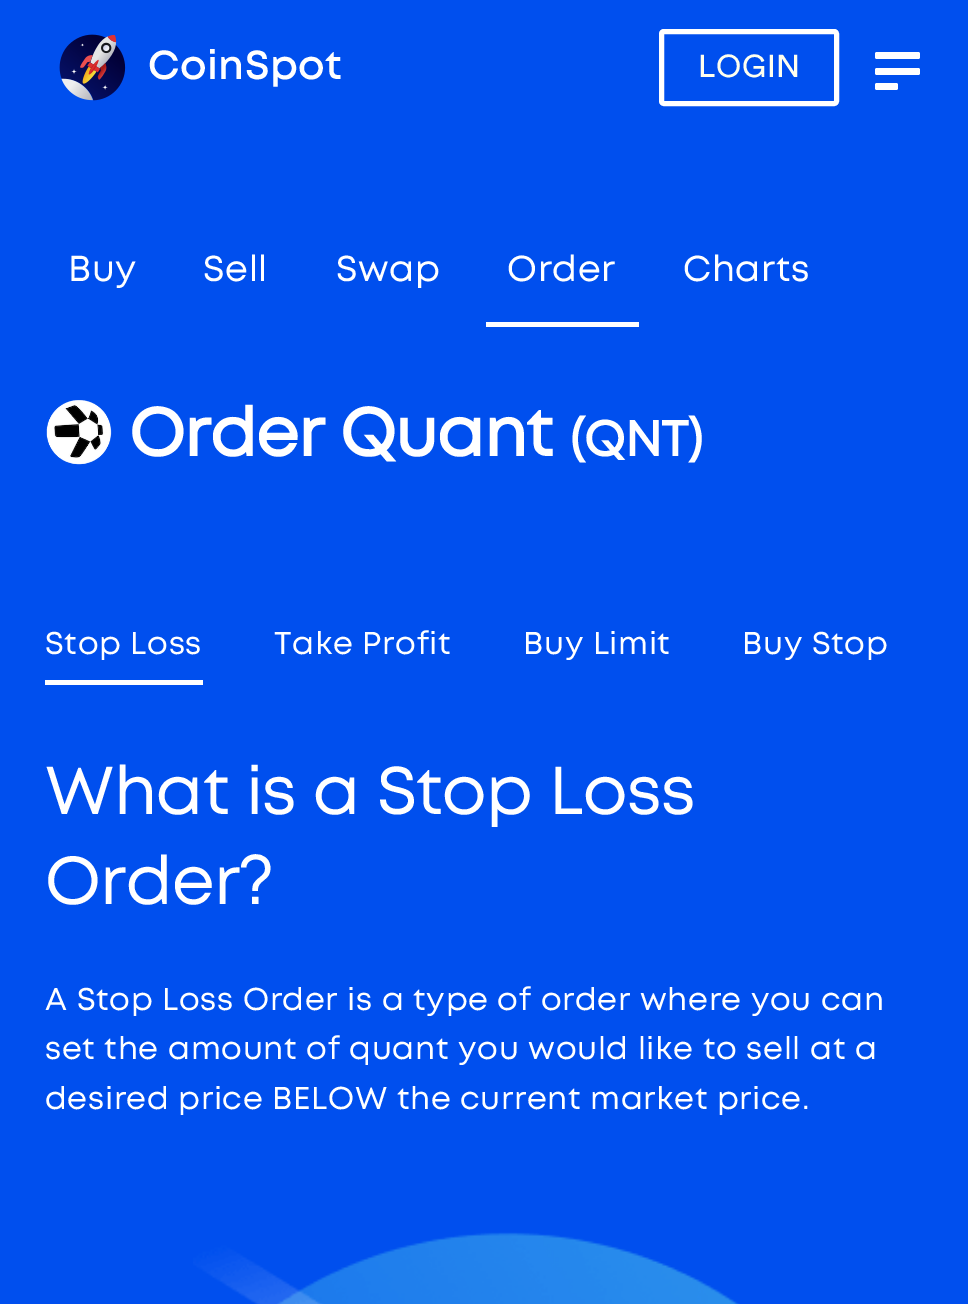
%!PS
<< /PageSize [968 1304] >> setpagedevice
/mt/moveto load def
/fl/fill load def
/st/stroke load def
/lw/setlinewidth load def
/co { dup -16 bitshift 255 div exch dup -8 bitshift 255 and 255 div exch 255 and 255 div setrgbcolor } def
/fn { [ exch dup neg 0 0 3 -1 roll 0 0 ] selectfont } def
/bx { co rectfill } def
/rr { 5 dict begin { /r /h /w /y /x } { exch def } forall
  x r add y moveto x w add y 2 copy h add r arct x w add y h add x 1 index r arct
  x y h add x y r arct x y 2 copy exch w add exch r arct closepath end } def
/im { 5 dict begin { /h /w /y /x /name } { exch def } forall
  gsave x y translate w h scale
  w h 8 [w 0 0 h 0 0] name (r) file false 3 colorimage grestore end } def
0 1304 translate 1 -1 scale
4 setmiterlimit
0 0 968 1304 16#004FEE bx
(media/1.raw) 59 34 67 67 im
16#FFFFFF co
5 lw
661.5 31.5 175 72 2.5 rr st
875 52 45 7 2 rr fl
875 68 45 7 2 rr fl
875 83 23 7 2 rr fl
486 322 153 5 16#FFFFFF bx
(media/2.raw) 46 400 66 65 im
45 680 158 5 16#FFFFFF bx
(media/3.raw) 193 1232 547 72 im
/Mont-SemiBold 40.5 fn
148 79 mt .5 0 (CoinSpot) ashow
/Circular-Regular 31.5 fn
16#FFFFEE co
698 77 mt .67 0 (LOGIN) ashow
/Mont-Regular 36 fn
16#FFFFFF co
68 281 mt .67 0 (Buy) ashow
203 281 mt .67 0 (Sell) ashow
336 281 mt .67 0 (Swap) ashow
507 281 mt .67 0 (Order) ashow
683 281 mt .67 0 (Charts) ashow
/Mont-Bold 67.5 fn
129 456 mt -.7 0 (Order Quant) ashow
/Mont-Bold 49.5 fn
570 456 mt -.7 0 (\(QNT\)) ashow
/Mont-Regular 31.5 fn
45 654 mt .67 0 (Stop Loss) ashow
274 654 mt .67 0 (Take Profit) ashow
523 654 mt .67 0 (Buy Limit) ashow
742 654 mt .67 0 (Buy Stop) ashow
/Mont-Regular 67.5 fn
45 814 mt -.7 0 (What is a Stop Loss) ashow
45 904 mt -.7 0 (Order?) ashow
/Mont-Regular 31.5 fn
45 1010 mt .67 0 (A Stop Loss Order is a type of order where you can) ashow
45 1059 mt .67 0 (set the amount of quant you would like to sell at a) ashow
45 1109 mt .67 0 (desired price BELOW the current market price.) ashow
showpage
